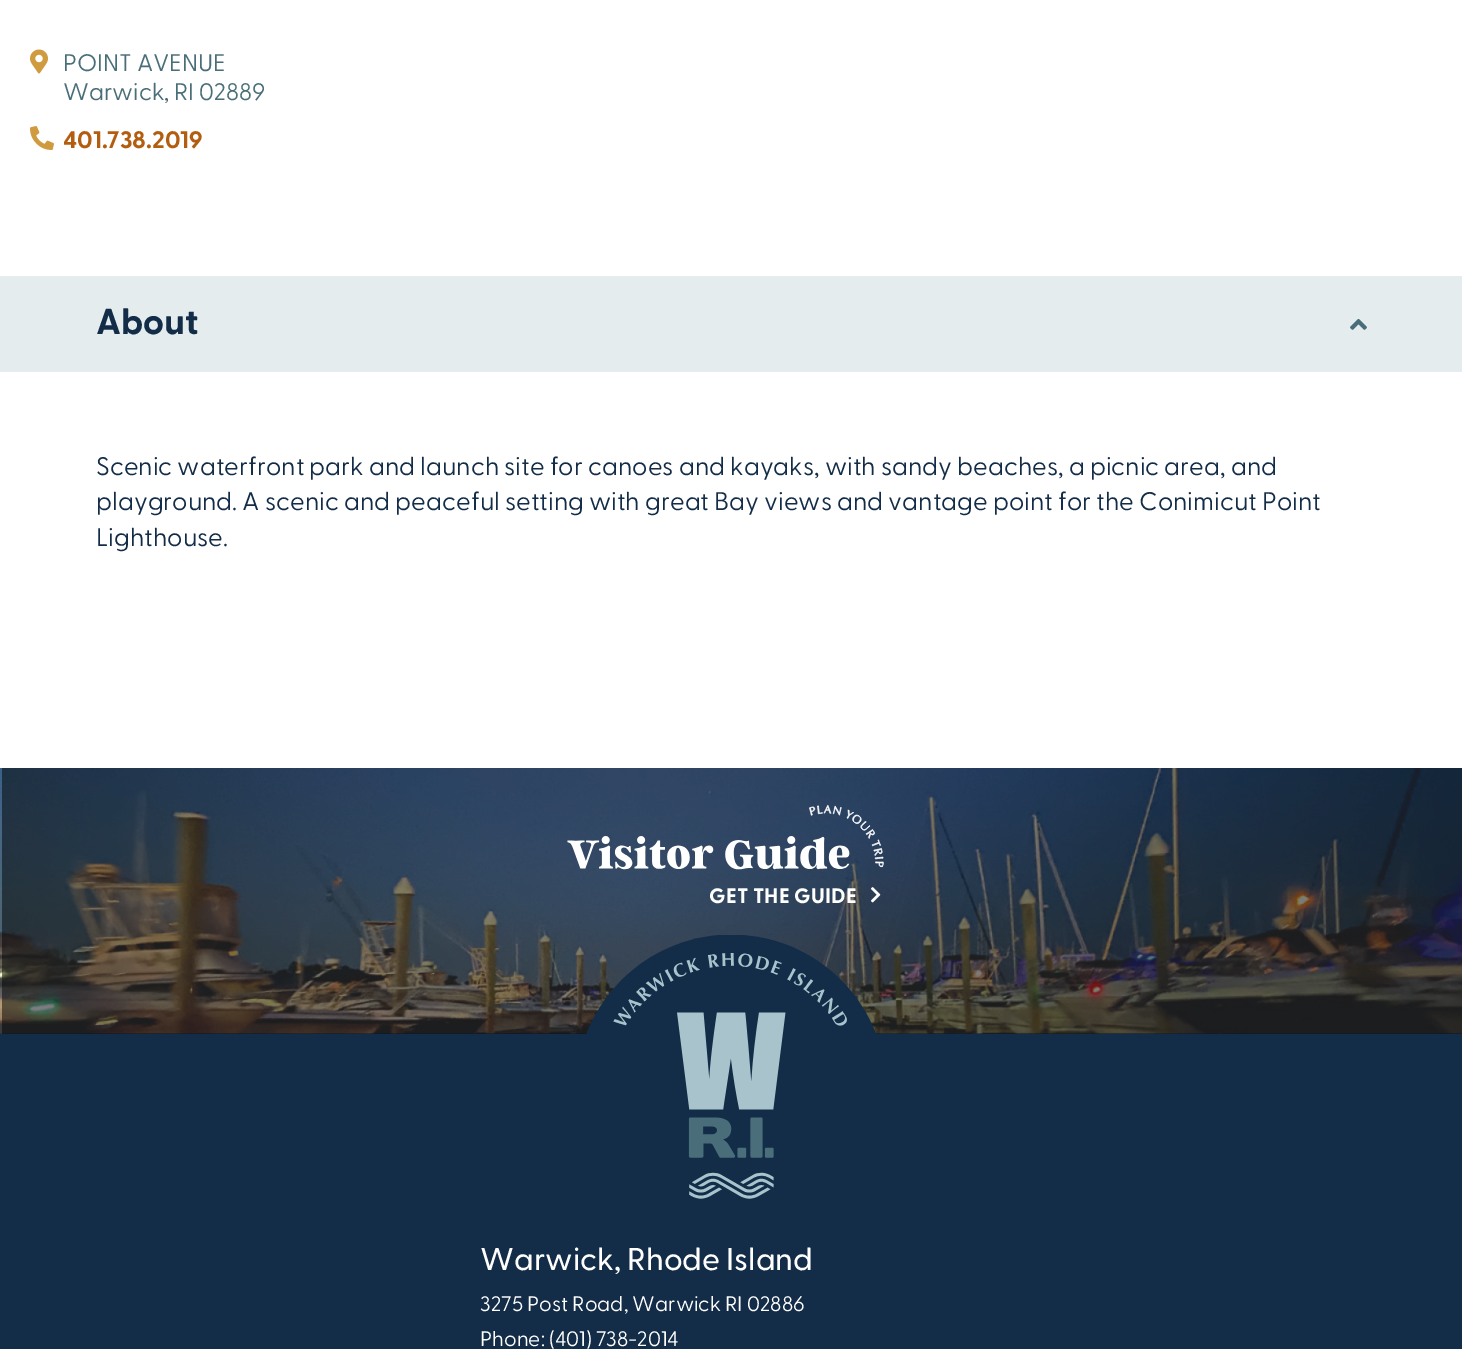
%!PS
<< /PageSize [1462 1349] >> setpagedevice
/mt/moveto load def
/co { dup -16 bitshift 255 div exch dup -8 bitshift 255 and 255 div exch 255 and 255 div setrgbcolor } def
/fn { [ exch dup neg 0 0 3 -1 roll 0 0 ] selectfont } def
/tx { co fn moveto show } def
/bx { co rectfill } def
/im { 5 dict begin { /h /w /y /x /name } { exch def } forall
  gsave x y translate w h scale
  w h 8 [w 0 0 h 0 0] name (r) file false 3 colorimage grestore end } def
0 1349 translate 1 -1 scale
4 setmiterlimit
0 0 1462 1349 16#FFFFFF bx
(media/1.raw) 30 49 18 25 im
(media/2.raw) 30 126 24 24 im
0 276 1462 96 16#E4ECEE bx
(media/3.raw) 1350 319 17 11 im
0 1033 1462 316 16#132D48 bx
2 1033 1460 1 16#0A1724 bx
(media/4.raw) 0 768 1462 266 im
(media/5.raw) 567 804 317 66 im
(media/6.raw) 871 887 10 16 im
(media/7.raw) 586 935 290 264 im
(POINT AVENUE) 63 71 /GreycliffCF-Regular 24 16#4A6E79 tx
(Warwick, RI 02889) 63 100 /GreycliffCF-Regular 24 16#4A6E79 tx
(401.738.2019) 63 148 /GreycliffCF-Bold 24 16#B35D10 tx
(About) 96 334 /GreycliffCF-Bold 36 16#132D48 tx
(Scenic waterfront park and launch site for canoes and kayaks, with sandy beaches, a picnic area, and) 96 475 /GreycliffCF-Regular 25.5 16#132D48 tx
(playground. A scenic and peaceful setting with great Bay views and vantage point for the Conimicut Point) 96 510 /GreycliffCF-Regular 25.5 16#132D48 tx
(Lighthouse.) 96 546 /GreycliffCF-Regular 25.5 16#132D48 tx
/GreycliffCF-Bold 21 fn
16#FFFFFF co
709 903 mt .25 0 (GET THE GUIDE) ashow
(Warwick, Rhode Island) 480 1270 /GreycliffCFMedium-Medium 31.5 16#FFFFFF tx
(3275 Post Road, Warwick RI 02886) 480 1311 /GreycliffCF-Regular 21 16#FFFFFF tx
(Phone: \(401\) 738-2014) 480 1346 /GreycliffCF-Regular 21 16#FFFFFF tx
showpage
